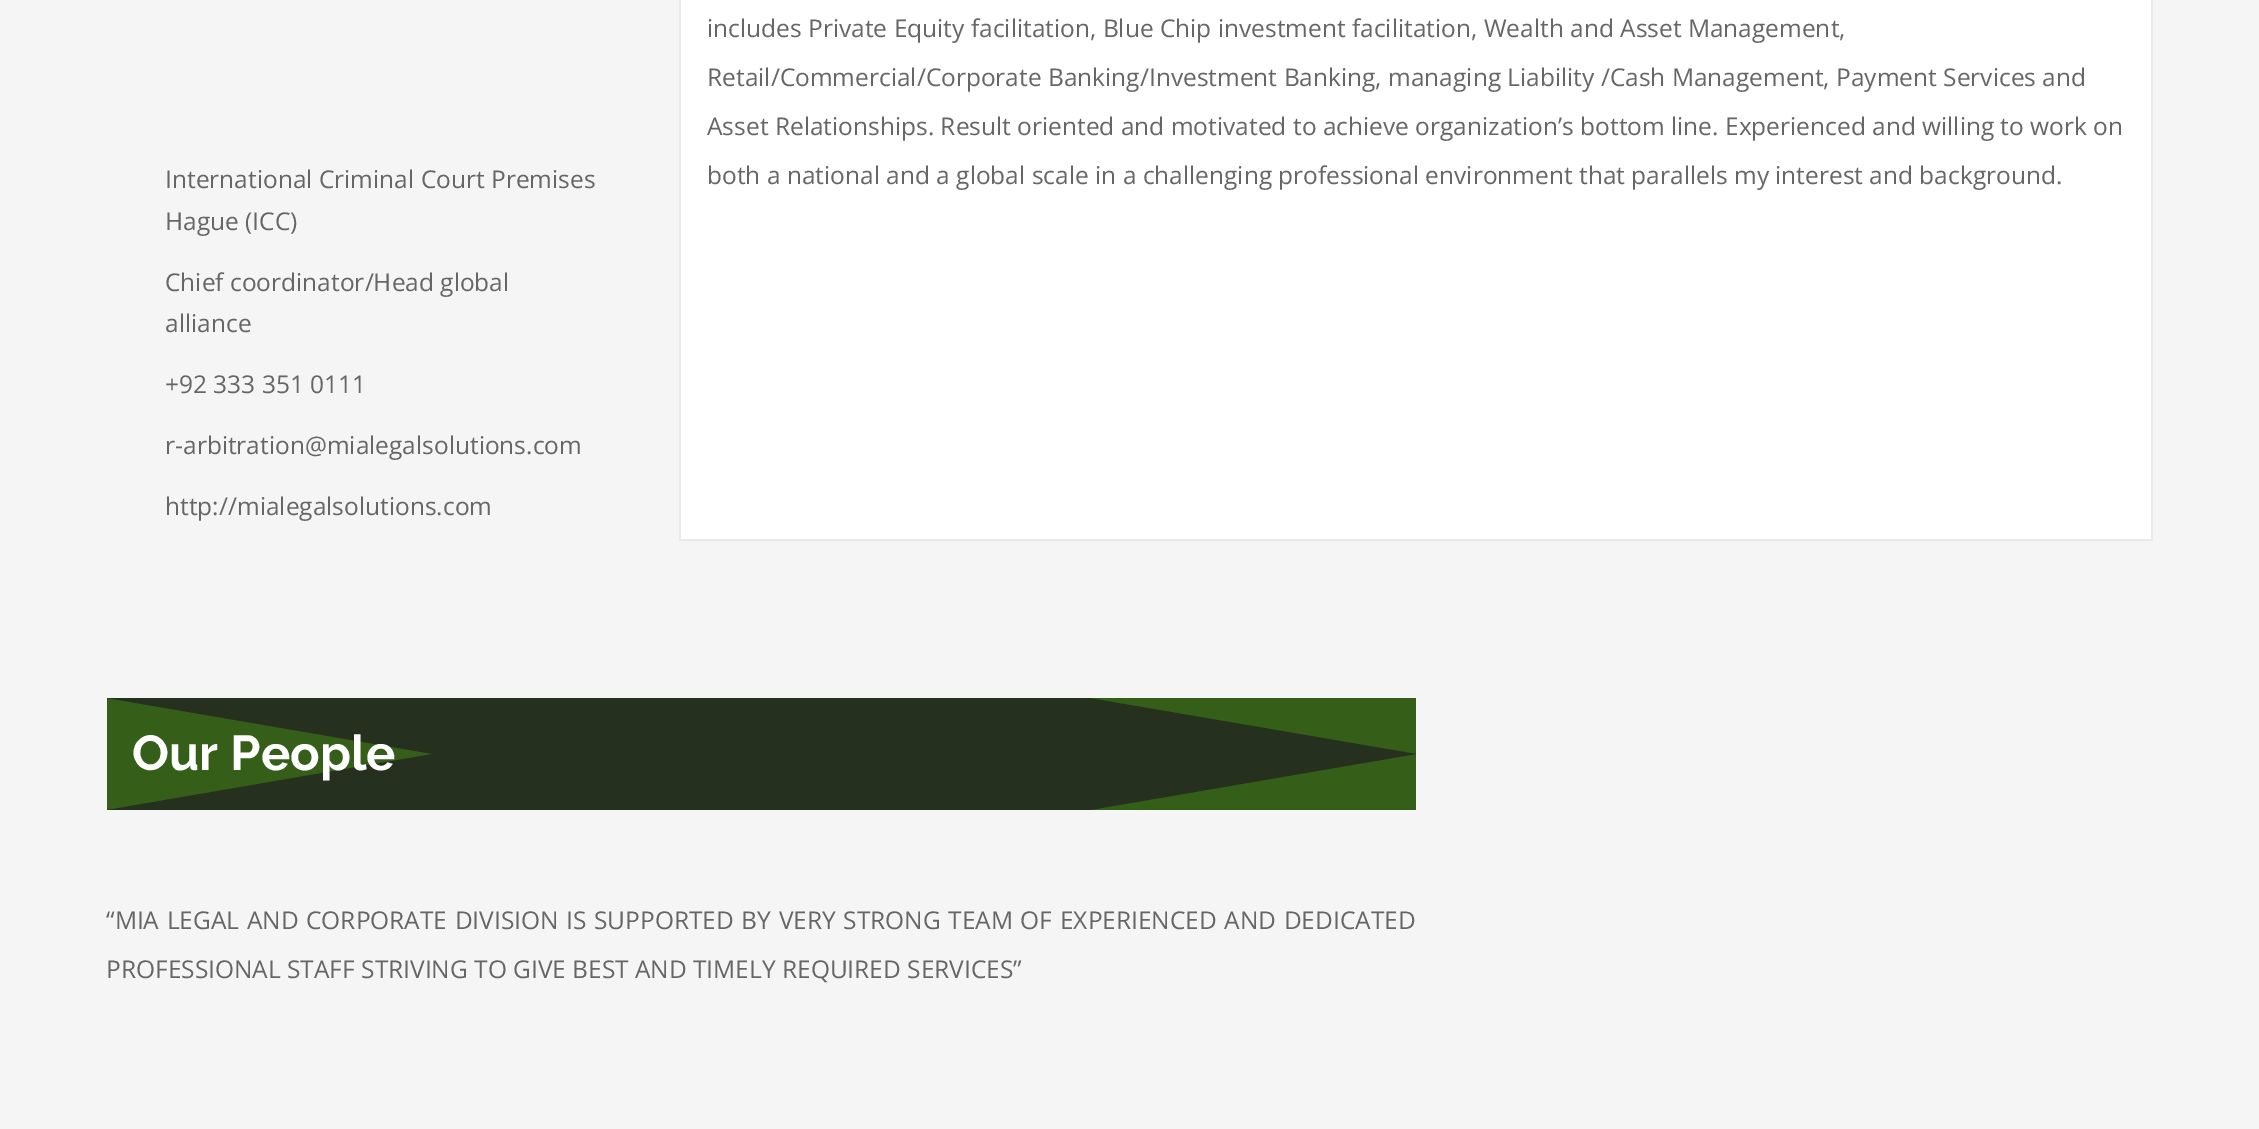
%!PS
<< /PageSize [2259 1129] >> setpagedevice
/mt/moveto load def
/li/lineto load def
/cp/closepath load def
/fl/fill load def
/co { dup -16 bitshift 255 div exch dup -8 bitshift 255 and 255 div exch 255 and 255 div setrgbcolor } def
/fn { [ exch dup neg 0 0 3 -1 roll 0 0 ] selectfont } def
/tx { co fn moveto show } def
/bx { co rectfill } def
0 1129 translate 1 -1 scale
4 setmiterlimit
0 0 2259 1129 16#F5F5F5 bx
681 0 1470 539 16#FFFFFF bx
2151 0 2 541 16#EBEAEA bx
679 539 1474 2 16#EBEAEA bx
679 0 2 541 16#EBEAEA bx
107 698 1309 112 16#355E18 bx
16#26301F co
1089 698 mt 1416 754 li 1090 810 li 107 810 li 433 754 li 107 698 li cp fl
(includes Private Equity facilitation, Blue Chip investment facilitation, Wealth and Asset Management,) 707 37 /OpenSans-Regular 24.5 16#666666 tx
(Retail/Commercial/Corporate Banking/Investment Banking, managing Liability /Cash Management, Payment Services and) 707 86 /OpenSans-Regular 24.5 16#666666 tx
(Asset Relationships. Result oriented and motivated to achieve organization’s bottom line. Experienced and willing to work on) 707 135 /OpenSans-Regular 24.5 16#666666 tx
(both a national and a global scale in a challenging professional environment that parallels my interest and background.) 707 184 /OpenSans-Regular 24.5 16#666666 tx
(International Criminal Court Premises) 165 188 /OpenSans-Regular 24.5 16#666666 tx
(Hague \(ICC\)) 165 230 /OpenSans-Regular 24.5 16#666666 tx
(Chief coordinator/Head global) 165 291 /OpenSans-Regular 24.5 16#666666 tx
(alliance) 165 332 /OpenSans-Regular 24.5 16#666666 tx
(+92 333 351 0111) 165 393 /OpenSans-Regular 24.5 16#666666 tx
(r-arbitration@mialegalsolutions.com) 165 454 /OpenSans-Regular 24.5 16#666666 tx
(http://mialegalsolutions.com) 165 515 /OpenSans-Regular 24.5 16#666666 tx
(Our People) 132 770 /Raleway-Thin 49 16#FFFFFF tx
/OpenSans-Regular 24.5 fn
16#666666 co
106 929 mt 1.25 0 32 (“MIA LEGAL AND CORPORATE DIVISION IS SUPPORTED BY VERY STRONG TEAM OF EXPERIENCED AND DEDICATED) widthshow
(PROFESSIONAL STAFF STRIVING TO GIVE BEST AND TIMELY REQUIRED SERVICES”) 106 978 /OpenSans-Regular 24.5 16#666666 tx
showpage
